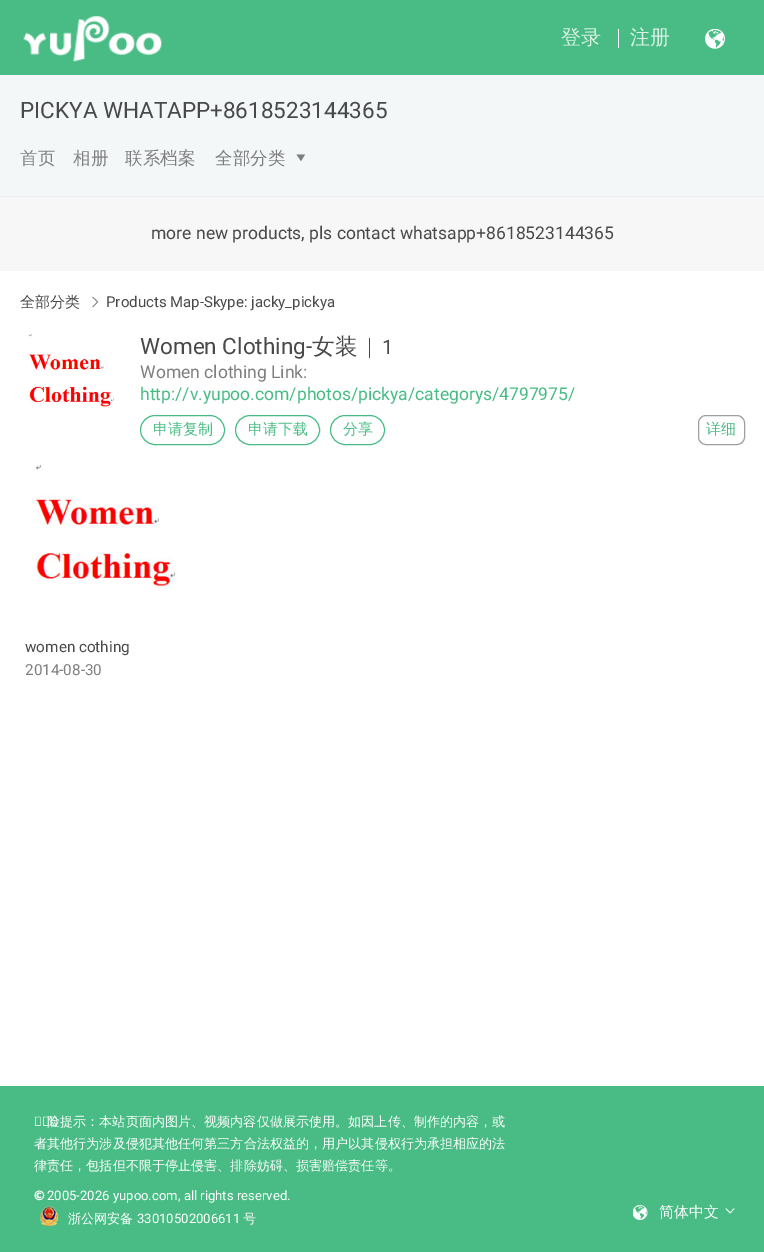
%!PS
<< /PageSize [764 1252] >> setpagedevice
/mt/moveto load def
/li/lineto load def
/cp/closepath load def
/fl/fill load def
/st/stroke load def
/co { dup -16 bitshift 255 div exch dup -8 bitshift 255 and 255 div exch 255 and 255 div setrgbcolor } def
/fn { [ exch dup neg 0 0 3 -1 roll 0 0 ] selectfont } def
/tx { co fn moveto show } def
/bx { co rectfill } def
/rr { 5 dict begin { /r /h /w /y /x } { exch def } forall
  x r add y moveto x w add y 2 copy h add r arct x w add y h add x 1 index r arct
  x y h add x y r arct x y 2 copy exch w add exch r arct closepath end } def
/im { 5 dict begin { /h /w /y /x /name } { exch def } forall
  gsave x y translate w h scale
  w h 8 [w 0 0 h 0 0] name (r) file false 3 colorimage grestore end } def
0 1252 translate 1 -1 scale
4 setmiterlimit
0 0 764 1252 16#FFFFFF bx
0 0 764 75 16#49BC85 bx
(media/1.raw) 23 16 139 46 im
618 29 1 19 16#FFFFFF bx
(media/2.raw) 705 29 20 20 im
0 75 764 121 16#F3F7F7 bx
16#7F7F7F co
301 161 mt 296.5 154.5 li 305 154.5 li cp fl
0 197 764 74 16#F7F7F7 bx
0 196 764 1 16#ECECEC bx
(media/3.raw) 92 296 7 12 im
(media/4.raw) 28 334 86 74 im
369 338 1 20 16#494949 bx
16#49BC85 co
140.5 415.5 84 29 14.5 rr st
235.5 415.5 84 29 14.5 rr st
330.5 415.5 54 29 14.5 rr st
16#9F9F9F co
698.5 415.5 46 29 7.5 rr st
(media/5.raw) 34 465 142 124 im
0 1086 764 166 16#49BC85 bx
(media/6.raw) 40 1206 19 20 im
(media/7.raw) 633 1205 15 15 im
(media/8.raw) 725 1208 10 6 im
(登录) 561 44 /WenQuanYiZenHei-Medium 20 16#DBF2E7 tx
(注册) 630 44 /WenQuanYiZenHei-Medium 20 16#DBF2E7 tx
(PICKYA WHATAPP+8618523144365) 20 118 /Roboto-Regular 22.5 16#494949 tx
(首页) 20 164 /WenQuanYiZenHei-Medium 17.5 16#7F7F7F tx
(相册) 73 164 /WenQuanYiZenHei-Medium 17.5 16#7F7F7F tx
(联系档案) 125 164 /WenQuanYiZenHei-Medium 17.5 16#7F7F7F tx
(全部分类) 215 164 /WenQuanYiZenHei-Medium 17.5 16#7F7F7F tx
(more new products, pls contact whatsapp+8618523144365) 151 239 /Roboto-Regular 17.5 16#494949 tx
(全部分类) 20 307 /WenQuanYiZenHei-Medium 15 16#494949 tx
(Products Map-Skype: jacky_pickya) 106 307 /Roboto-Regular 15 16#494949 tx
(Women Clothing-) 140 354 /Roboto-Regular 22.5 16#494949 tx
(女装) 312 354 /WenQuanYiZenHei-Medium 22.5 16#494949 tx
(1) 382 354 /Roboto-Regular 20 16#494949 tx
(Women clothing Link:) 140 378 /Roboto-Regular 17.5 16#7F7F7F tx
(http://v.yupoo.com/photos/pickya/categorys/4797975/) 140 400 /Roboto-Regular 17.5 16#49BC85 tx
(申请复制) 153 434 /WenQuanYiZenHei-Medium 15 16#49BC85 tx
(申请下载) 248 434 /WenQuanYiZenHei-Medium 15 16#49BC85 tx
(分享) 343 434 /WenQuanYiZenHei-Medium 15 16#49BC85 tx
(详细) 706 434 /WenQuanYiZenHei-Medium 15 16#49BC85 tx
(women cothing) 25 652 /Roboto-Regular 15.25 16#494949 tx
(2014-08-30) 25 675 /Roboto-Regular 15.25 16#7F7F7F tx
(风) 34 1126 /NotoSans-Regular 13.1 16#FFFFFF tx
(险提示：本站页面内图片、视频内容仅做展示使用。如因上传、制作的内容，或) 47 1126 /WenQuanYiZenHei-Medium 13.1 16#FFFFFF tx
(者其他行为涉及侵犯其他任何第三方合法权益的，用户以其侵权行为承担相应的法) 34 1148 /WenQuanYiZenHei-Medium 13.1 16#FFFFFF tx
(律责任，包括但不限于停止侵害、排除妨碍、损害赔偿责任等。) 34 1170 /WenQuanYiZenHei-Medium 13.1 16#FFFFFF tx
(©) 34 1200 /NotoSans-Black 13.1 16#FFFFFF tx
(2005-2026 yupoo.com, all rights reserved.) 47 1200 /Roboto-Regular 13.1 16#FFFFFF tx
(浙公网安备) 68 1223 /WenQuanYiZenHei-Medium 13.1 16#FFFFFF tx
(33010502006611) 137 1223 /Roboto-Regular 13.1 16#FFFFFF tx
(号) 243 1223 /WenQuanYiZenHei-Medium 13.1 16#FFFFFF tx
(简体中文) 659 1217 /WenQuanYiZenHei-Medium 15 16#FFFFFF tx
showpage
